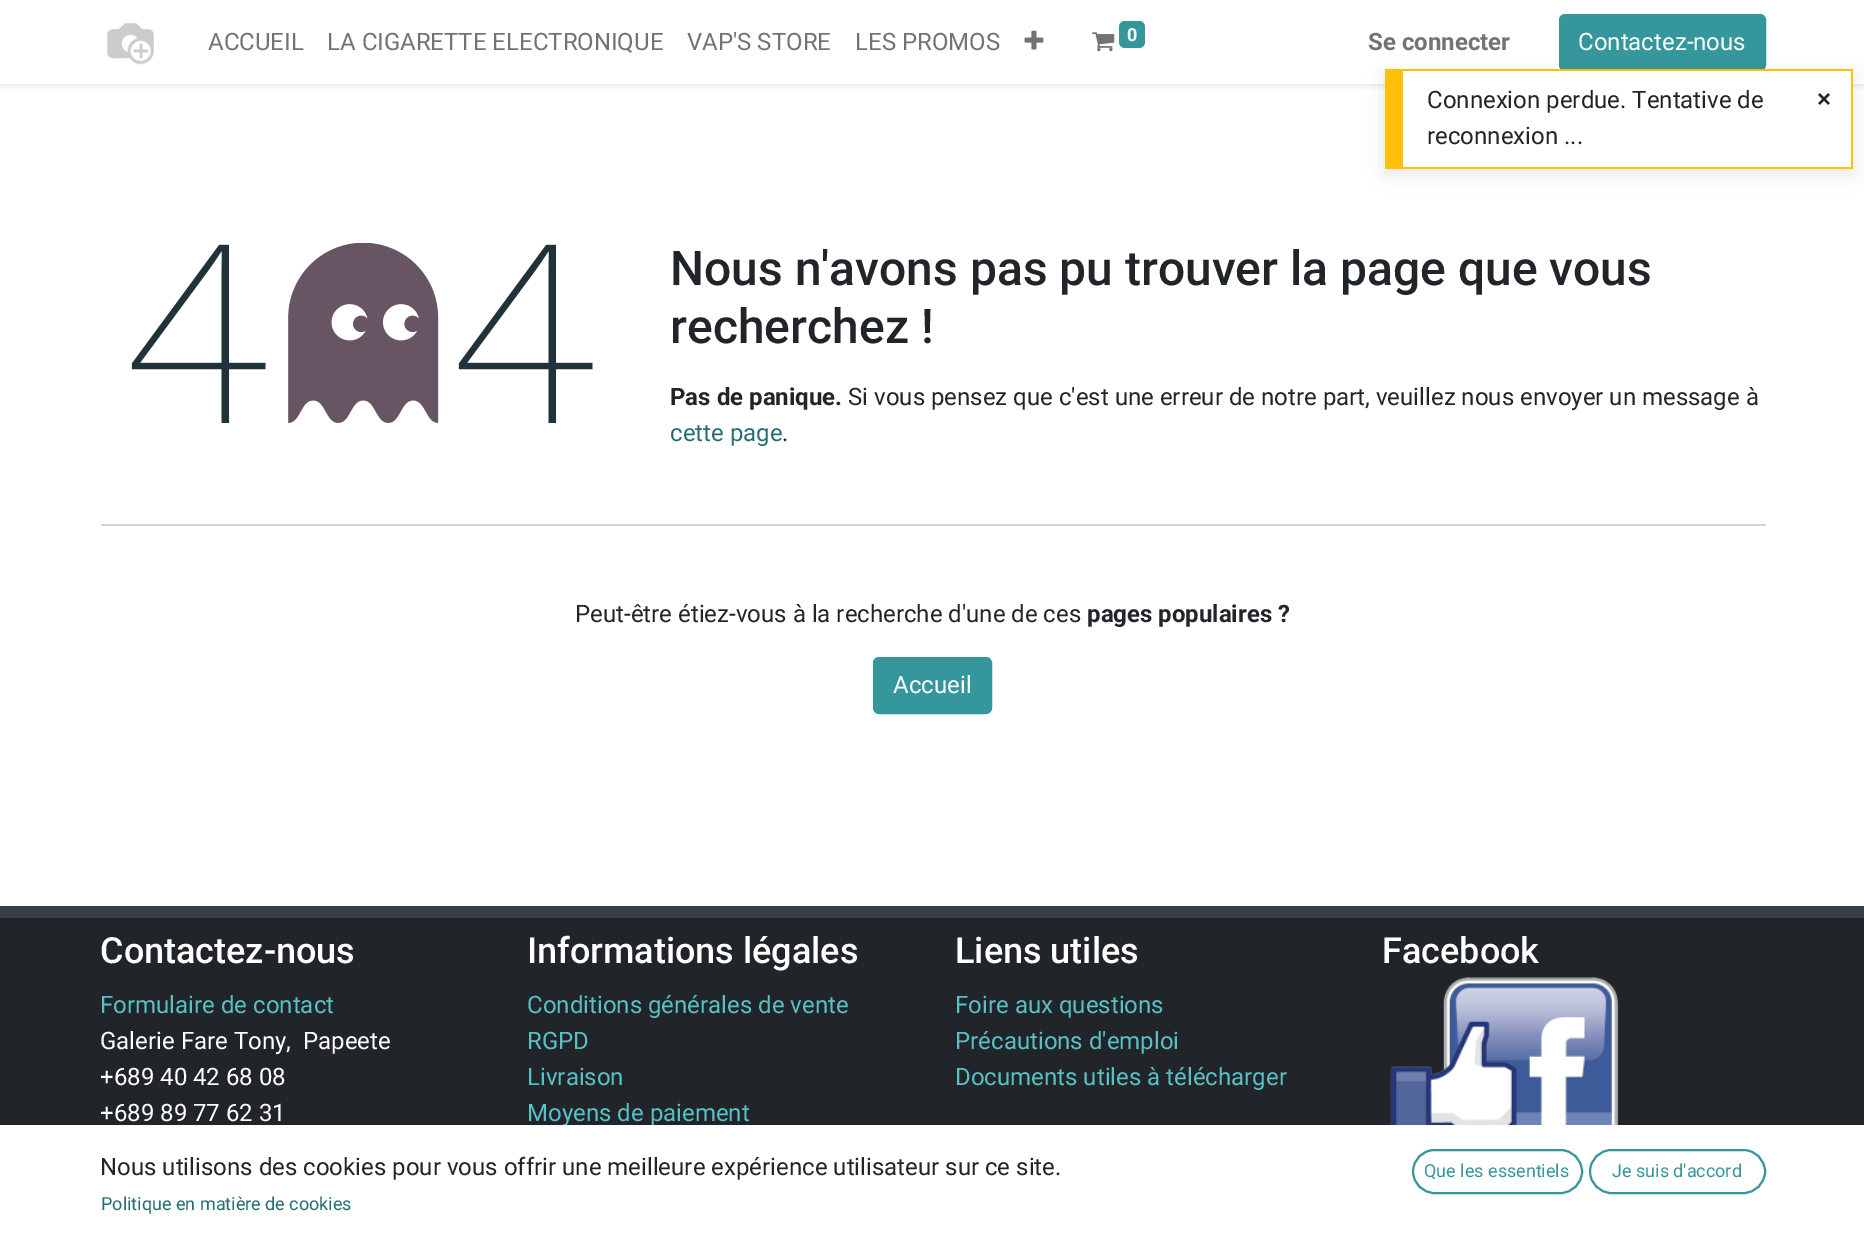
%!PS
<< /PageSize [1864 1245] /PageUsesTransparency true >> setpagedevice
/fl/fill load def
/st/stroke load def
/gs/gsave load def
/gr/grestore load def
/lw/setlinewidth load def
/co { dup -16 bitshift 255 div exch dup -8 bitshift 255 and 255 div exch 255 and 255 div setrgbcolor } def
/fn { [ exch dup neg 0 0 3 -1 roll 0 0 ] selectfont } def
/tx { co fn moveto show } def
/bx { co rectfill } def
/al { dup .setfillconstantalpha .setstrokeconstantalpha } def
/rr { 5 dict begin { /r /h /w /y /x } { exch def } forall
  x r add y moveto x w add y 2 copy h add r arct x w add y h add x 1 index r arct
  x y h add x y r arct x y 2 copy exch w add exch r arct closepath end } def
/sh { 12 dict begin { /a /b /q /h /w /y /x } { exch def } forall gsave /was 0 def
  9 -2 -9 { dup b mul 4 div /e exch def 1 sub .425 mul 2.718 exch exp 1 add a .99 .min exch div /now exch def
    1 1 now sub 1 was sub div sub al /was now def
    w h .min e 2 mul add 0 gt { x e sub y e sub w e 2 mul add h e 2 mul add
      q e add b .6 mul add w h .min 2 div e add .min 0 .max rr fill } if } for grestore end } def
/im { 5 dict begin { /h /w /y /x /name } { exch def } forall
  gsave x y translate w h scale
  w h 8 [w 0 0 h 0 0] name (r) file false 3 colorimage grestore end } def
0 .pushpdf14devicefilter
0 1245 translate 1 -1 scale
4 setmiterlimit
0 0 1864 1245 16#FFFFFF bx
gs
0 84 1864 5 rectclip
16#000000 co
0 3 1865 84 0 3 .07 sh
gr
(media/1.raw) 107 23 47 42 im
(media/2.raw) 1024 30 20 20 im
(media/3.raw) 1092 32 23 20 im
16#35979C co
1119 21 26 27 6 rr fl
1560 15 205 55 5 rr gs fl gr
2 lw
st
(media/4.raw) 131 243 462 180 im
101 524 1665 2 16#CED4DA bx
16#35979C co
874 658 117 55 5 rr gs fl gr
st
0 906 1864 12 16#383E45 bx
0 918 1864 207 16#212529 bx
(media/5.raw) 1390 977 229 148 im
16#35979C co
1413 1150 169 43 21.5 rr st
1590 1150 175 43 21.5 rr st
16#000000 co
1385 75 468 99 0 9 .1 sh
1403 71 448 96 16#FFFFFF bx
1403 69 450 2 16#FFC107 bx
1851 69 2 99 16#FFC107 bx
1385 167 468 2 16#FFC107 bx
1385 69 18 98 16#FFC107 bx
(ACCUEIL) 208 50 /Roboto-Regular 24 16#737373 tx
(LA CIGARETTE ELECTRONIQUE) 327 50 /Roboto-Regular 24 16#737373 tx
(VAP'S STORE) 687 50 /Roboto-Regular 24 16#737373 tx
(LES PROMOS) 855 50 /Roboto-Regular 24 16#737373 tx
(0) 1127 41 /Roboto-Bold 18 16#FFFFFF tx
(Se connecter) 1368 50 /Roboto-Bold 24 16#737373 tx
(Contactez-nous) 1578 50 /Roboto-Regular 24 16#FFFFFF tx
(Nous n'avons pas pu trouver la page que vous) 670 285 /Roboto-Medium 48 16#212529 tx
(recherchez !) 670 343 /Roboto-Medium 48 16#212529 tx
(Pas de panique.) 670 405 /Roboto-Bold 24 16#212529 tx
(Si vous pensez que c'est une erreur de notre part, veuillez nous envoyer un message à) 848 405 /Roboto-Regular 24 16#212529 tx
(cette page) 670 441 /Roboto-Regular 24 16#276E72 tx
(.) 782 441 /Roboto-Regular 24 16#212529 tx
(Peut-être étiez-vous à la recherche d'une de ces) 575 622 /Roboto-Regular 24 16#212529 tx
(pages populaires ?) 1087 622 /Roboto-Bold 24 16#212529 tx
(Accueil) 893 693 /Roboto-Regular 24 16#FFFFFF tx
(Contactez-nous) 100 963 /Roboto-Medium 36 16#FFFFFF tx
(Formulaire de contact) 100 1013 /Roboto-Regular 24 16#57C1C6 tx
(Galerie Fare Tony,  Papeete) 100 1049 /Roboto-Regular 24 16#FFFFFF tx
(+689 40 42 68 08) 100 1085 /Roboto-Regular 24 16#FFFFFF tx
(+689 89 77 62 31) 100 1121 /Roboto-Regular 24 16#FFFFFF tx
(Informations légales) 527 963 /Roboto-Medium 36 16#FFFFFF tx
(Conditions générales de vente) 527 1013 /Roboto-Regular 24 16#57C1C6 tx
(RGPD) 527 1049 /Roboto-Regular 24 16#57C1C6 tx
(Livraison) 527 1085 /Roboto-Regular 24 16#57C1C6 tx
(Moyens de paiement) 527 1121 /Roboto-Regular 24 16#57C1C6 tx
(Liens utiles) 955 963 /Roboto-Medium 36 16#FFFFFF tx
(Foire aux questions) 955 1013 /Roboto-Regular 24 16#57C1C6 tx
(Précautions d'emploi) 955 1049 /Roboto-Regular 24 16#57C1C6 tx
(Documents utiles à télécharger) 955 1085 /Roboto-Regular 24 16#57C1C6 tx
(Facebook) 1382 963 /Roboto-Medium 36 16#FFFFFF tx
562 1125 92 2 16#FFFFFF bx
(Nous utilisons des cookies pour vous offrir une meilleure expérience utilisateur sur ce site.) 100 1175 /Roboto-Regular 24 16#212529 tx
(Politique en matière de cookies) 101 1210 /Roboto-Regular 18 16#276E72 tx
(Que les essentiels) 1424 1177 /Roboto-Regular 18 16#35979C tx
(Je suis d'accord) 1612 1177 /Roboto-Regular 18 16#35979C tx
(Connexion perdue. Tentative de) 1427 108 /Roboto-Regular 24 16#212529 tx
(reconnexion ...) 1427 144 /Roboto-Regular 24 16#212529 tx
(×) 1817 107 /LiberationSans-Bold 24 16#212529 tx
.poppdf14devicefilter showpage
